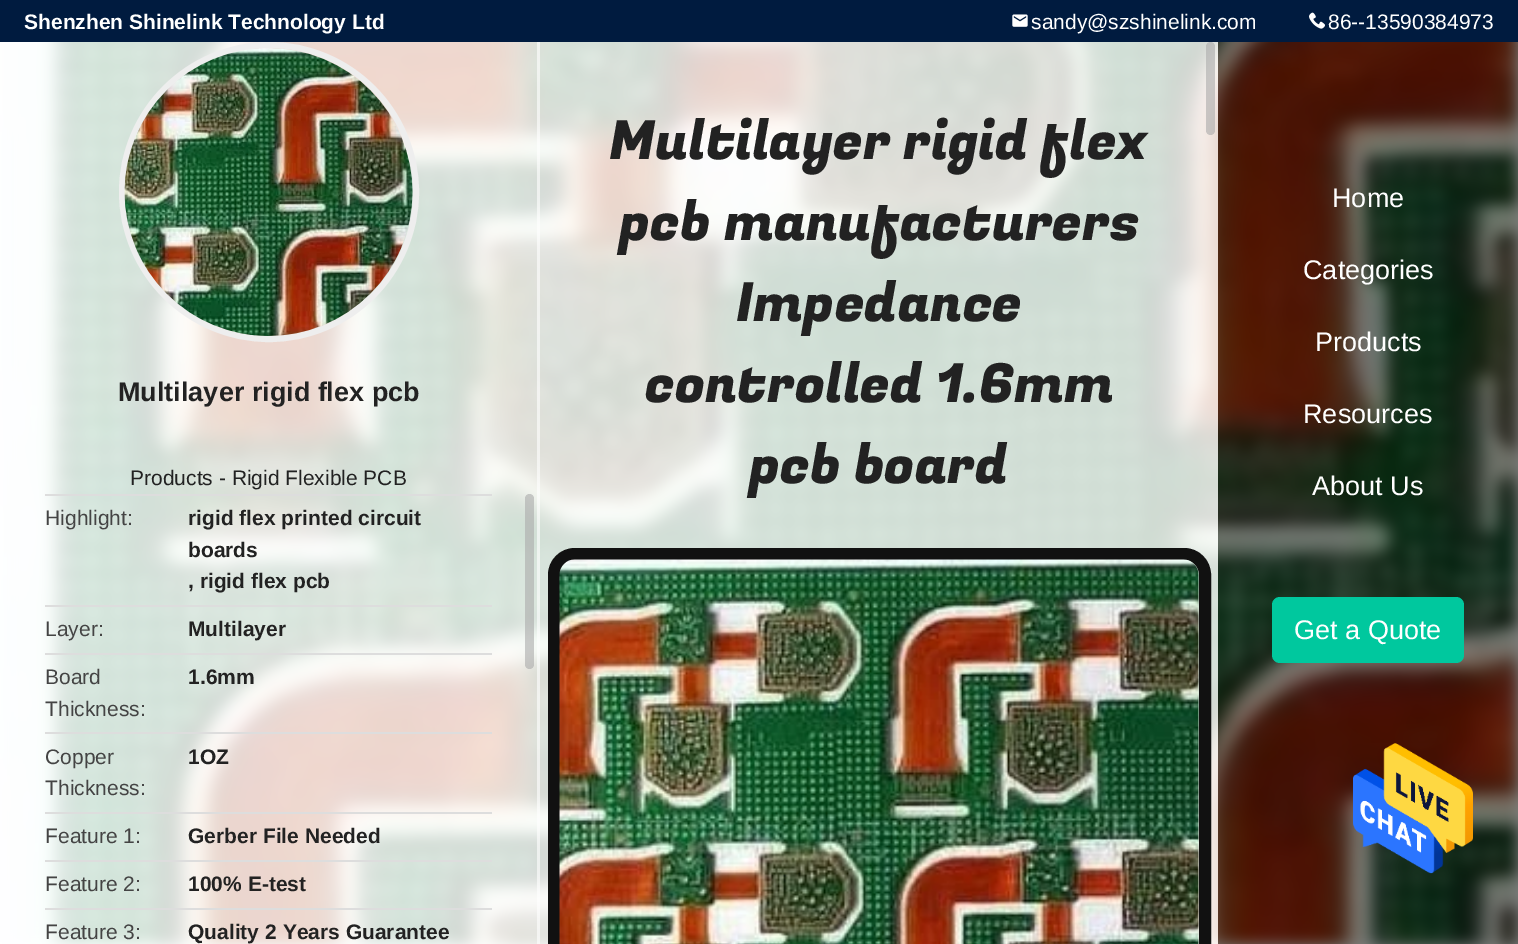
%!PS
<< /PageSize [1518 944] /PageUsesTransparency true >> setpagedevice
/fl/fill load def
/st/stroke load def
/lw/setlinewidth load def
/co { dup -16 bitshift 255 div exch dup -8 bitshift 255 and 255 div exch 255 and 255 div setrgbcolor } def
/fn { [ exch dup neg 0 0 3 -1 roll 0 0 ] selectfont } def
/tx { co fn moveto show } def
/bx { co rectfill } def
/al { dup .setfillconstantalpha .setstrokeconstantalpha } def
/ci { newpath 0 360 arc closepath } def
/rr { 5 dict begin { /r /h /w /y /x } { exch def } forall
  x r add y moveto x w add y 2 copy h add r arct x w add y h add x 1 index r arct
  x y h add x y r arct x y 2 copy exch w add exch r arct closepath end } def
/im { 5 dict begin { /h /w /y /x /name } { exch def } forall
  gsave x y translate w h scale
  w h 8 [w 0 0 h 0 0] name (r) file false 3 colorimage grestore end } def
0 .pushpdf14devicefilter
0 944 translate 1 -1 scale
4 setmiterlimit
0 0 1518 944 16#FFFFFF bx
0 0 1518 42 16#001B3F bx
(media/1.raw) 1012 14 16 13 im
(media/2.raw) 1309 12 16 17 im
(media/3.raw) 0 42 1518 902 im
0.8 al
0 42 540 902 16#FFFFFF bx
0.6 al
537 42 3 902 16#FFFFFF bx
1 al
16#EEEEEE co
6 lw
269 192 147 ci st
(media/4.raw) 124 48 289 288 im
45 494 447 2 16#DDDDDD bx
45 605 447 2 16#DDDDDD bx
45 653 447 2 16#DDDDDD bx
45 732 447 2 16#DDDDDD bx
45 812 447 2 16#DDDDDD bx
45 860 447 2 16#DDDDDD bx
45 908 447 2 16#DDDDDD bx
0.6 al
16#AAAAAA co
525 494 9 175 4.5 rr fl
0.8 al
540 42 678 902 16#FFFFFF bx
0.6 al
16#AAAAAA co
1206 42 9 93 4.5 rr fl
1 al
16#111111 co
12 lw
554 554 651 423 21 rr st
(media/5.raw) 559 559 640 385 im
0.5 al
1218 42 300 902 16#000000 bx
1 al
16#00C89E co
1272 597 192 66 8 rr fl
(media/6.raw) 1353 743 120 131 im
(Shenzhen Shinelink Technology Ltd) 24 29 /LiberationSans-Bold 21 16#FFFFFF tx
(sandy@szshinelink.com) 1031 29 /LiberationSans-Regular 21 16#FFFFFF tx
(86--13590384973) 1328 29 /LiberationSans-Regular 21 16#FFFFFF tx
(Multilayer rigid flex pcb) 118 401 /LiberationSans-Bold 27 16#222222 tx
(Products - Rigid Flexible PCB) 130 485 /LiberationSans-Regular 21 16#222222 tx
(Highlight:) 45 525 /LiberationSans-Regular 21 16#444444 tx
(rigid flex printed circuit) 188 525 /LiberationSans-Bold 21 16#222222 tx
(boards) 188 557 /LiberationSans-Bold 21 16#222222 tx
(, rigid flex pcb) 188 588 /LiberationSans-Bold 21 16#222222 tx
(Layer:) 45 636 /LiberationSans-Regular 21 16#444444 tx
(Multilayer) 188 636 /LiberationSans-Bold 21 16#222222 tx
(Board) 45 684 /LiberationSans-Regular 21 16#444444 tx
(Thickness:) 45 716 /LiberationSans-Regular 21 16#444444 tx
(1.6mm) 188 684 /LiberationSans-Bold 21 16#222222 tx
(Copper) 45 764 /LiberationSans-Regular 21 16#444444 tx
(Thickness:) 45 795 /LiberationSans-Regular 21 16#444444 tx
(1OZ) 188 764 /LiberationSans-Bold 21 16#222222 tx
(Feature 1:) 45 843 /LiberationSans-Regular 21 16#444444 tx
(Gerber File Needed) 188 843 /LiberationSans-Bold 21 16#222222 tx
(Feature 2:) 45 891 /LiberationSans-Regular 21 16#444444 tx
(100% E-test) 188 891 /LiberationSans-Bold 21 16#222222 tx
(Feature 3:) 45 939 /LiberationSans-Regular 21 16#444444 tx
(Quality 2 Years Guarantee) 188 939 /LiberationSans-Bold 21 16#222222 tx
(Multilayer rigid flex) 609 159 /FugazOne-Regular 54 16#222222 tx
(pcb manufacturers) 619 240 /FugazOne-Regular 54 16#222222 tx
(Impedance) 736 321 /FugazOne-Regular 54 16#222222 tx
(controlled 1.6mm) 645 402 /FugazOne-Regular 54 16#222222 tx
(pcb board) 749 483 /FugazOne-Regular 54 16#222222 tx
(Home) 1332 207 /LiberationSans-Regular 27 16#FFFFFF tx
(Categories) 1303 279 /LiberationSans-Regular 27 16#FFFFFF tx
(Products) 1315 351 /LiberationSans-Regular 27 16#FFFFFF tx
(Resources) 1303 423 /LiberationSans-Regular 27 16#FFFFFF tx
(About Us) 1312 495 /LiberationSans-Regular 27 16#FFFFFF tx
(Get a Quote) 1294 639 /LiberationSans-Regular 27 16#FFFFFF tx
.poppdf14devicefilter showpage
